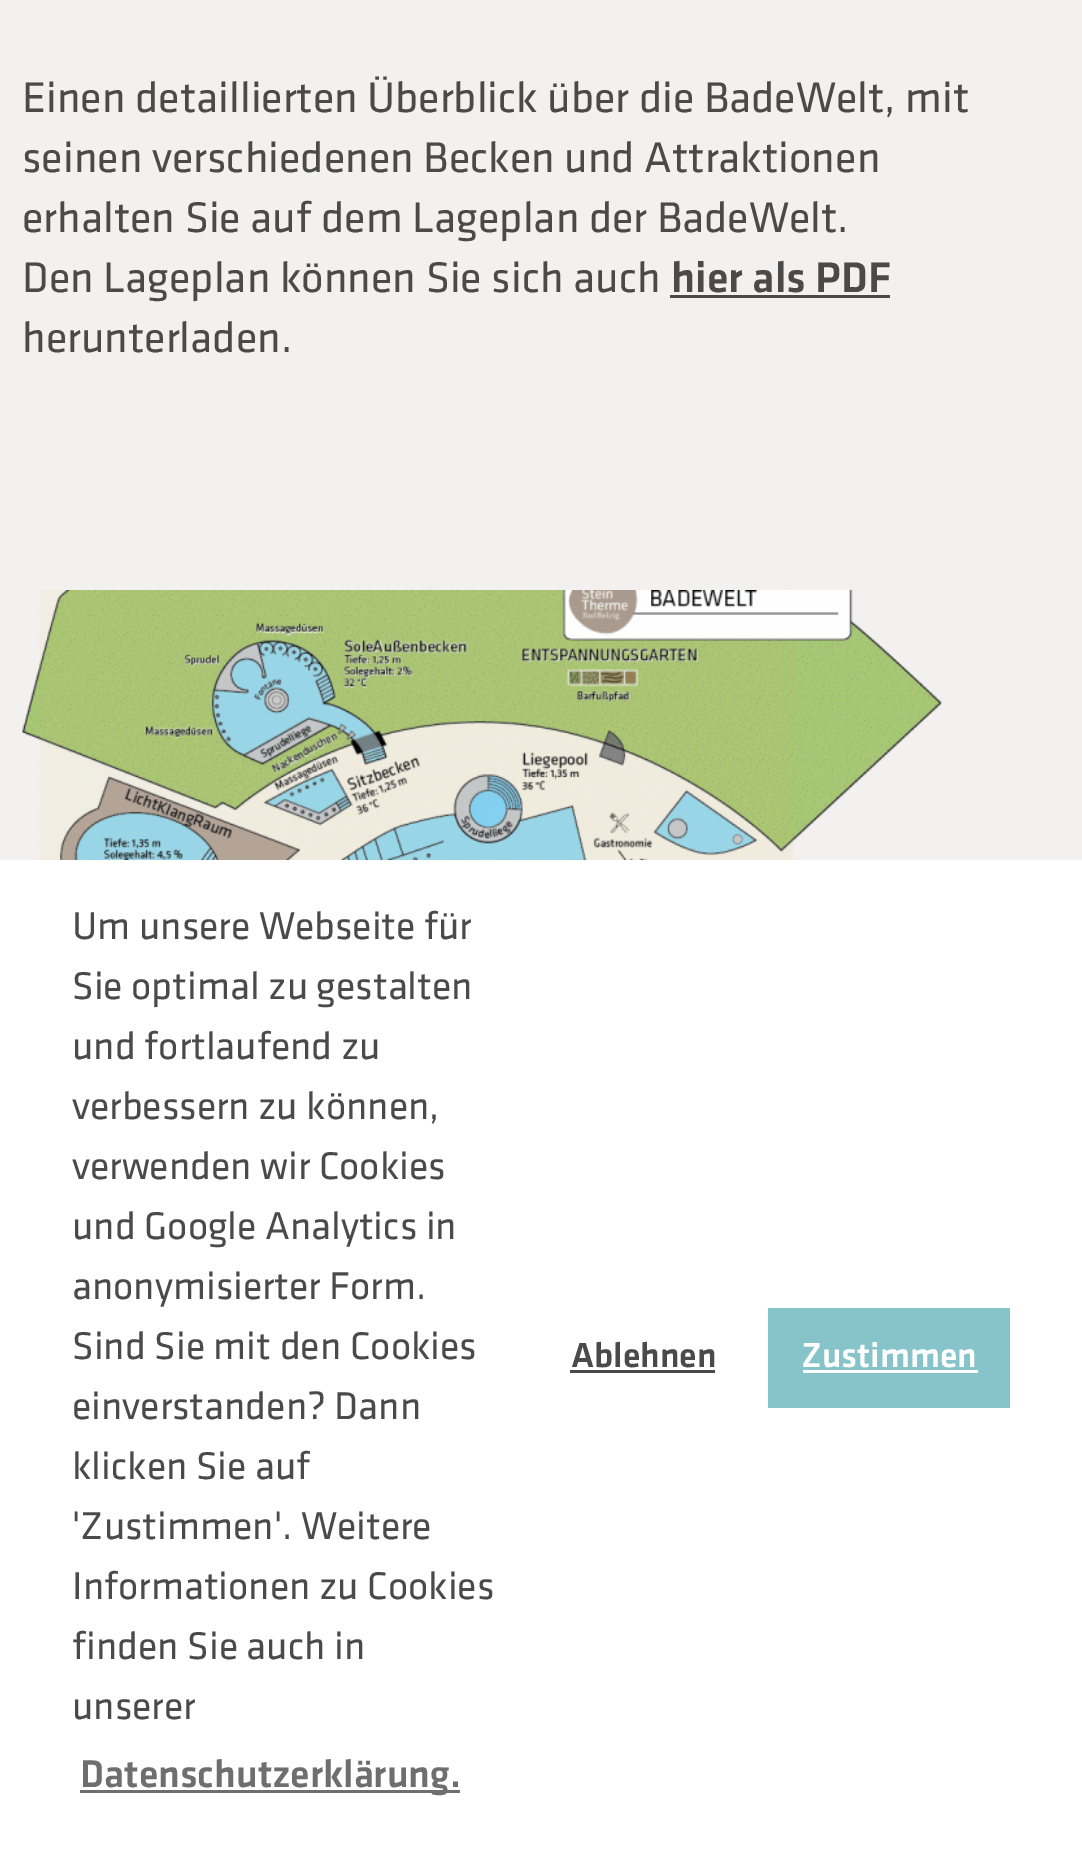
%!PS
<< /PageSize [1082 1853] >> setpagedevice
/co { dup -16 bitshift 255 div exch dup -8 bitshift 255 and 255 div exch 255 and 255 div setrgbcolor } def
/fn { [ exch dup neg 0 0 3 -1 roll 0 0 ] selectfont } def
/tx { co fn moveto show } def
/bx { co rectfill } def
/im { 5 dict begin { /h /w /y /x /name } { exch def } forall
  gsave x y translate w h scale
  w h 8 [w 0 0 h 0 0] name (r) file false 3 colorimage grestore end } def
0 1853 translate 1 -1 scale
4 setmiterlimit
0 0 1082 1853 16#F3F1EF bx
670 295 220 3 16#4A4A4A bx
(media/1.raw) 22 590 921 270 im
0 860 1082 993 16#FFFFFF bx
80 1790 380 3 16#6E6E6E bx
570 1370 145 3 16#4A4A4A bx
768 1308 242 100 16#87C4C9 bx
803 1370 175 3 16#FFFFFF bx
(Einen detaillierten Überblick über die BadeWelt, mit) 22 112 /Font-Regular 44.4 16#4A4A4A tx
(seinen verschiedenen Becken und Attraktionen) 22 172 /Font-Regular 44.4 16#4A4A4A tx
(erhalten Sie auf dem Lageplan der BadeWelt.) 22 232 /Font-Regular 44.4 16#4A4A4A tx
(Den Lageplan können Sie sich auch) 22 292 /Font-Regular 44.4 16#4A4A4A tx
(hier als PDF) 671 292 /Font-Medium 44.4 16#4A4A4A tx
(herunterladen.) 22 352 /Font-Regular 44.4 16#4A4A4A tx
(Um unsere Webseite für) 72 939 /Font-Regular 40 16#4A4A4A tx
(Sie optimal zu gestalten) 72 999 /Font-Regular 40 16#4A4A4A tx
(und fortlaufend zu) 72 1059 /Font-Regular 40 16#4A4A4A tx
(verbessern zu können,) 72 1119 /Font-Regular 40 16#4A4A4A tx
(verwenden wir Cookies) 72 1179 /Font-Regular 40 16#4A4A4A tx
(und Google Analytics in) 72 1239 /Font-Regular 40 16#4A4A4A tx
(anonymisierter Form.) 72 1299 /Font-Regular 40 16#4A4A4A tx
(Sind Sie mit den Cookies) 72 1359 /Font-Regular 40 16#4A4A4A tx
(einverstanden? Dann) 72 1419 /Font-Regular 40 16#4A4A4A tx
(klicken Sie auf) 72 1479 /Font-Regular 40 16#4A4A4A tx
('Zustimmen'. Weitere) 72 1539 /Font-Regular 40 16#4A4A4A tx
(Informationen zu Cookies) 72 1599 /Font-Regular 40 16#4A4A4A tx
(finden Sie auch in) 72 1659 /Font-Regular 40 16#4A4A4A tx
(unserer) 72 1719 /Font-Regular 40 16#4A4A4A tx
(Datenschutzerklärung.) 80 1787 /Font-Medium 40 16#6E6E6E tx
(Ablehnen) 571 1367 /Font-Medium 36 16#4A4A4A tx
(Zustimmen) 801 1367 /Font-Medium 36 16#FFFFFF tx
showpage
